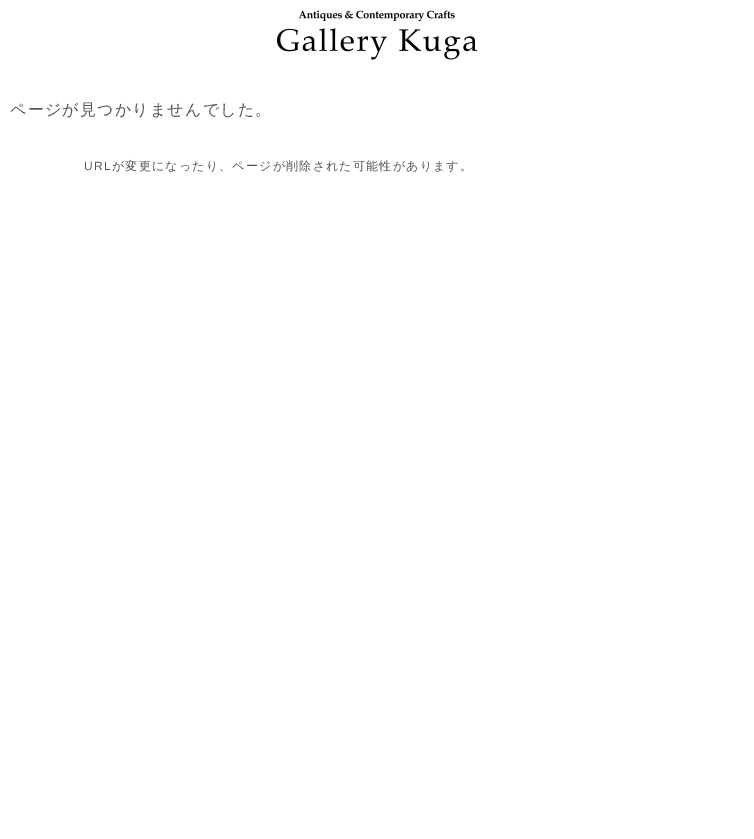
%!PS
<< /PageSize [754 839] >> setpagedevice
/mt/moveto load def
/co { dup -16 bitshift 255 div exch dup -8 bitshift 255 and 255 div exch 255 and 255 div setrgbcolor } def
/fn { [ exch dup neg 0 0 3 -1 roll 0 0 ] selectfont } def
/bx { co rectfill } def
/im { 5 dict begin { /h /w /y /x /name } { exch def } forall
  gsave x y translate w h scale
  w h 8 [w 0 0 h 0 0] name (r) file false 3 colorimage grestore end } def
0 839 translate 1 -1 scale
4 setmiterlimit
0 0 754 839 16#FFFFFF bx
(media/1.raw) 277 10 200 50 im
/WenQuanYiZenHei-Medium 16 fn
16#555555 co
10 115 mt 1.2 0 (ページが見つかりませんでした。) ashow
/LiberationSans-Regular 12 fn
84 170 mt 1.2 0 (URL) ashow
/WenQuanYiZenHei-Medium 12 fn
112 170 mt 1.2 0 (が変更になったり、ページが削除された可能性があります。) ashow
showpage
